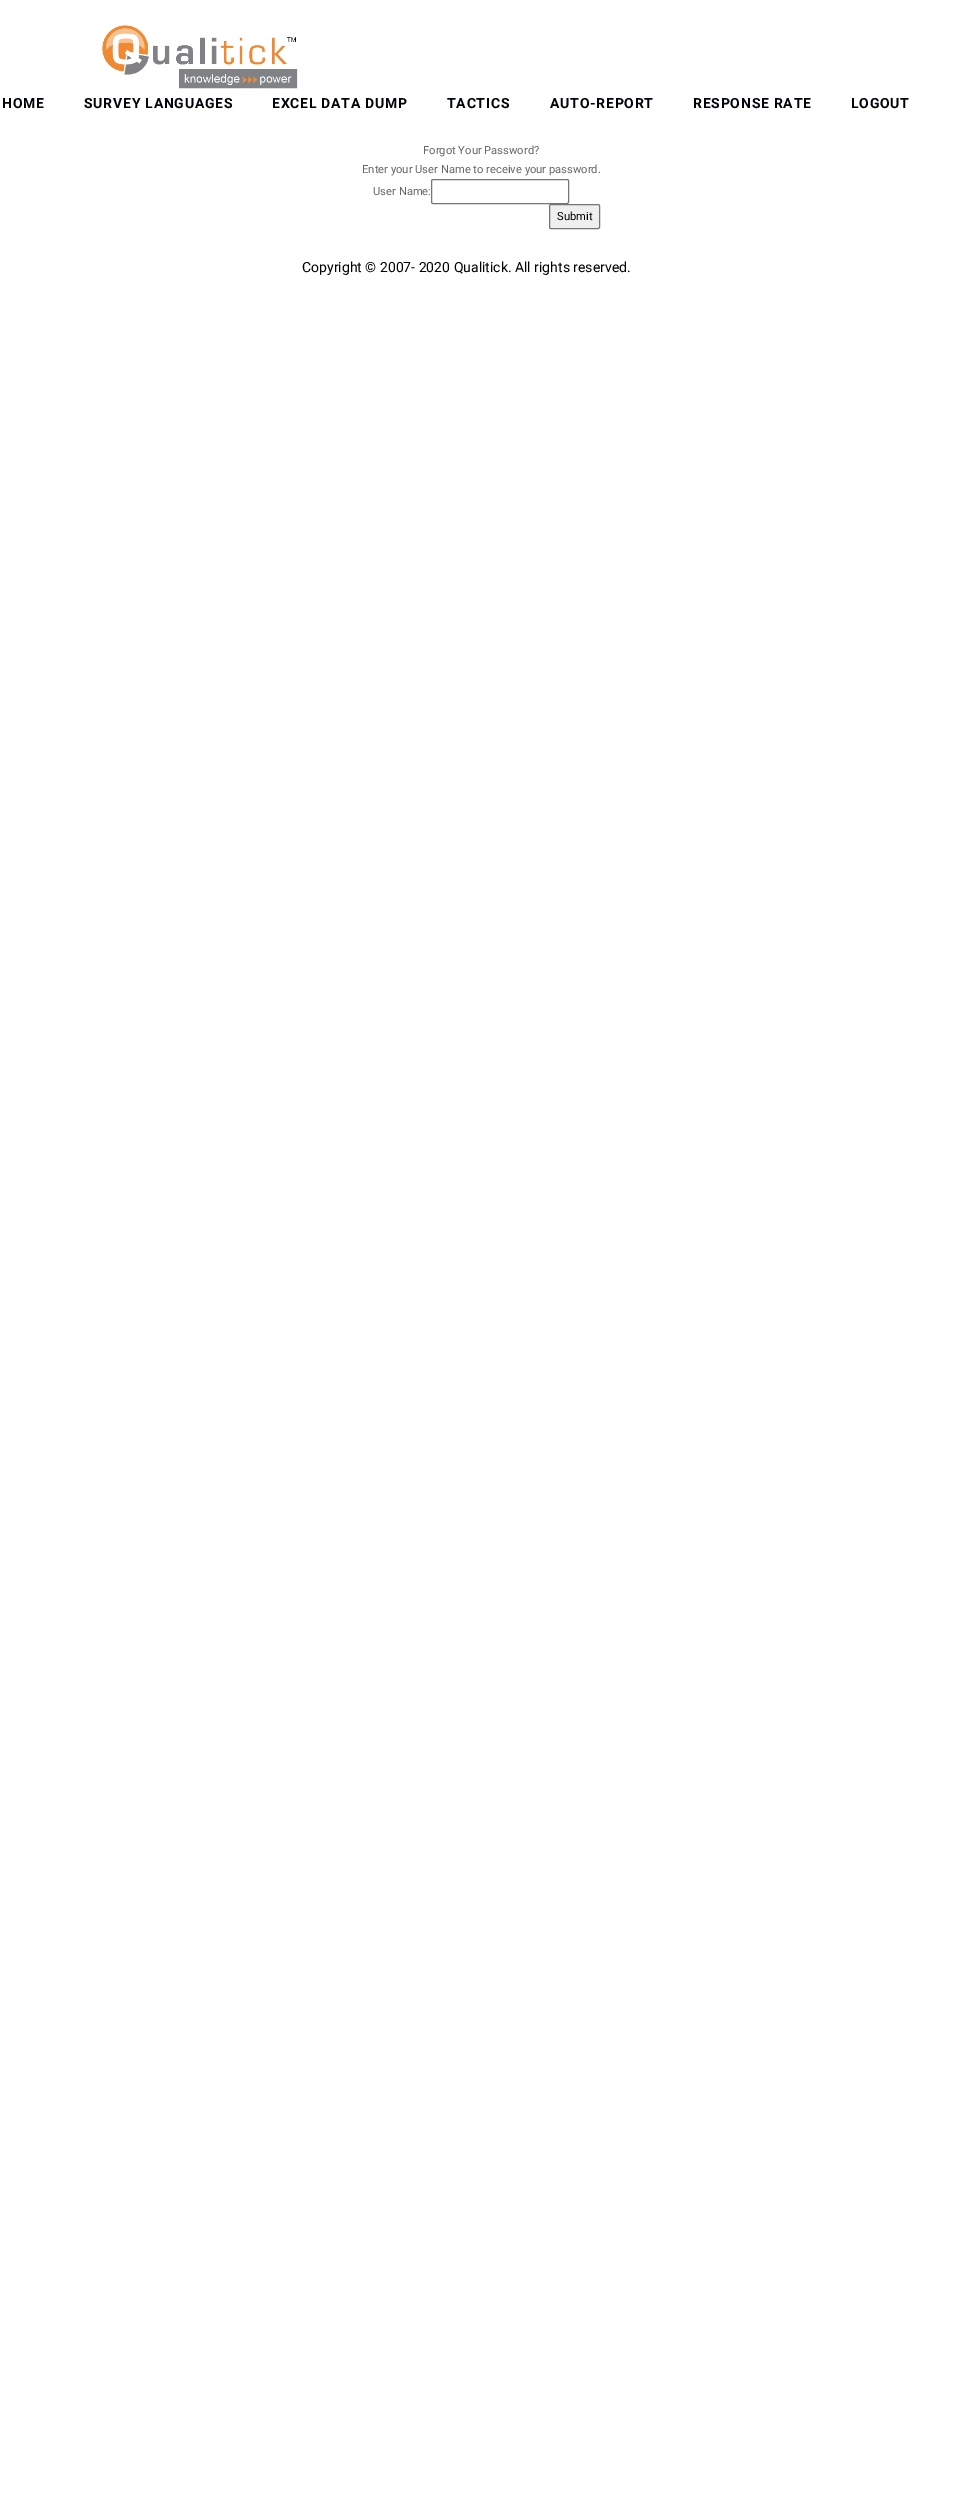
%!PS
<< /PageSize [962 2512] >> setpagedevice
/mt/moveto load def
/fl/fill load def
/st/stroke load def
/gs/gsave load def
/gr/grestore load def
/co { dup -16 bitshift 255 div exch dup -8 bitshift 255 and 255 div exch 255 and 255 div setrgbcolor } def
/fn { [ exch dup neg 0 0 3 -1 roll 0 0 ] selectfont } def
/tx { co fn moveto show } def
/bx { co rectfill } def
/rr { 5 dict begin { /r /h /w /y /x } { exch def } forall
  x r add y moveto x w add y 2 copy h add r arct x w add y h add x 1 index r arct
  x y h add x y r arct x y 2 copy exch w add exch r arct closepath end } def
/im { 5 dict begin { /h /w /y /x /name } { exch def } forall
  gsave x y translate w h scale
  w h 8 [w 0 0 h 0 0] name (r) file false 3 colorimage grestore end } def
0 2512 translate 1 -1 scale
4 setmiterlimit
0 0 962 2512 16#FFFFFF bx
(media/1.raw) 102 25 196 64 im
16#767676 co
431.5 179.5 137 24 1.5 rr st
16#EFEFEF co
549.5 204.5 50 24 1.5 rr gs fl gr
16#767676 co
st
/Roboto-Bold 14 fn
16#00030A co
2 108 mt .75 0 (HOME) ashow
84 108 mt .75 0 (SURVEY LANGUAGES) ashow
272 108 mt .75 0 (EXCEL DATA DUMP) ashow
447 108 mt .75 0 (TACTICS) ashow
550 108 mt .75 0 (AUTO-REPORT) ashow
693 108 mt .75 0 (RESPONSE RATE) ashow
851 108 mt .75 0 (LOGOUT) ashow
(Forgot Your Password?) 423 154 /Roboto-Regular 11.2 16#666666 tx
(Enter your User Name to receive your password.) 362 173 /Roboto-Regular 11.2 16#666666 tx
(User Name:) 373 195 /Roboto-Regular 11.2 16#666666 tx
(Submit) 557 220 /Roboto-Regular 11.2 16#000000 tx
(Copyright © 2007- 2020 Qualitick. All rights reserved.) 302 272 /Roboto-Regular 14 16#000000 tx
showpage
